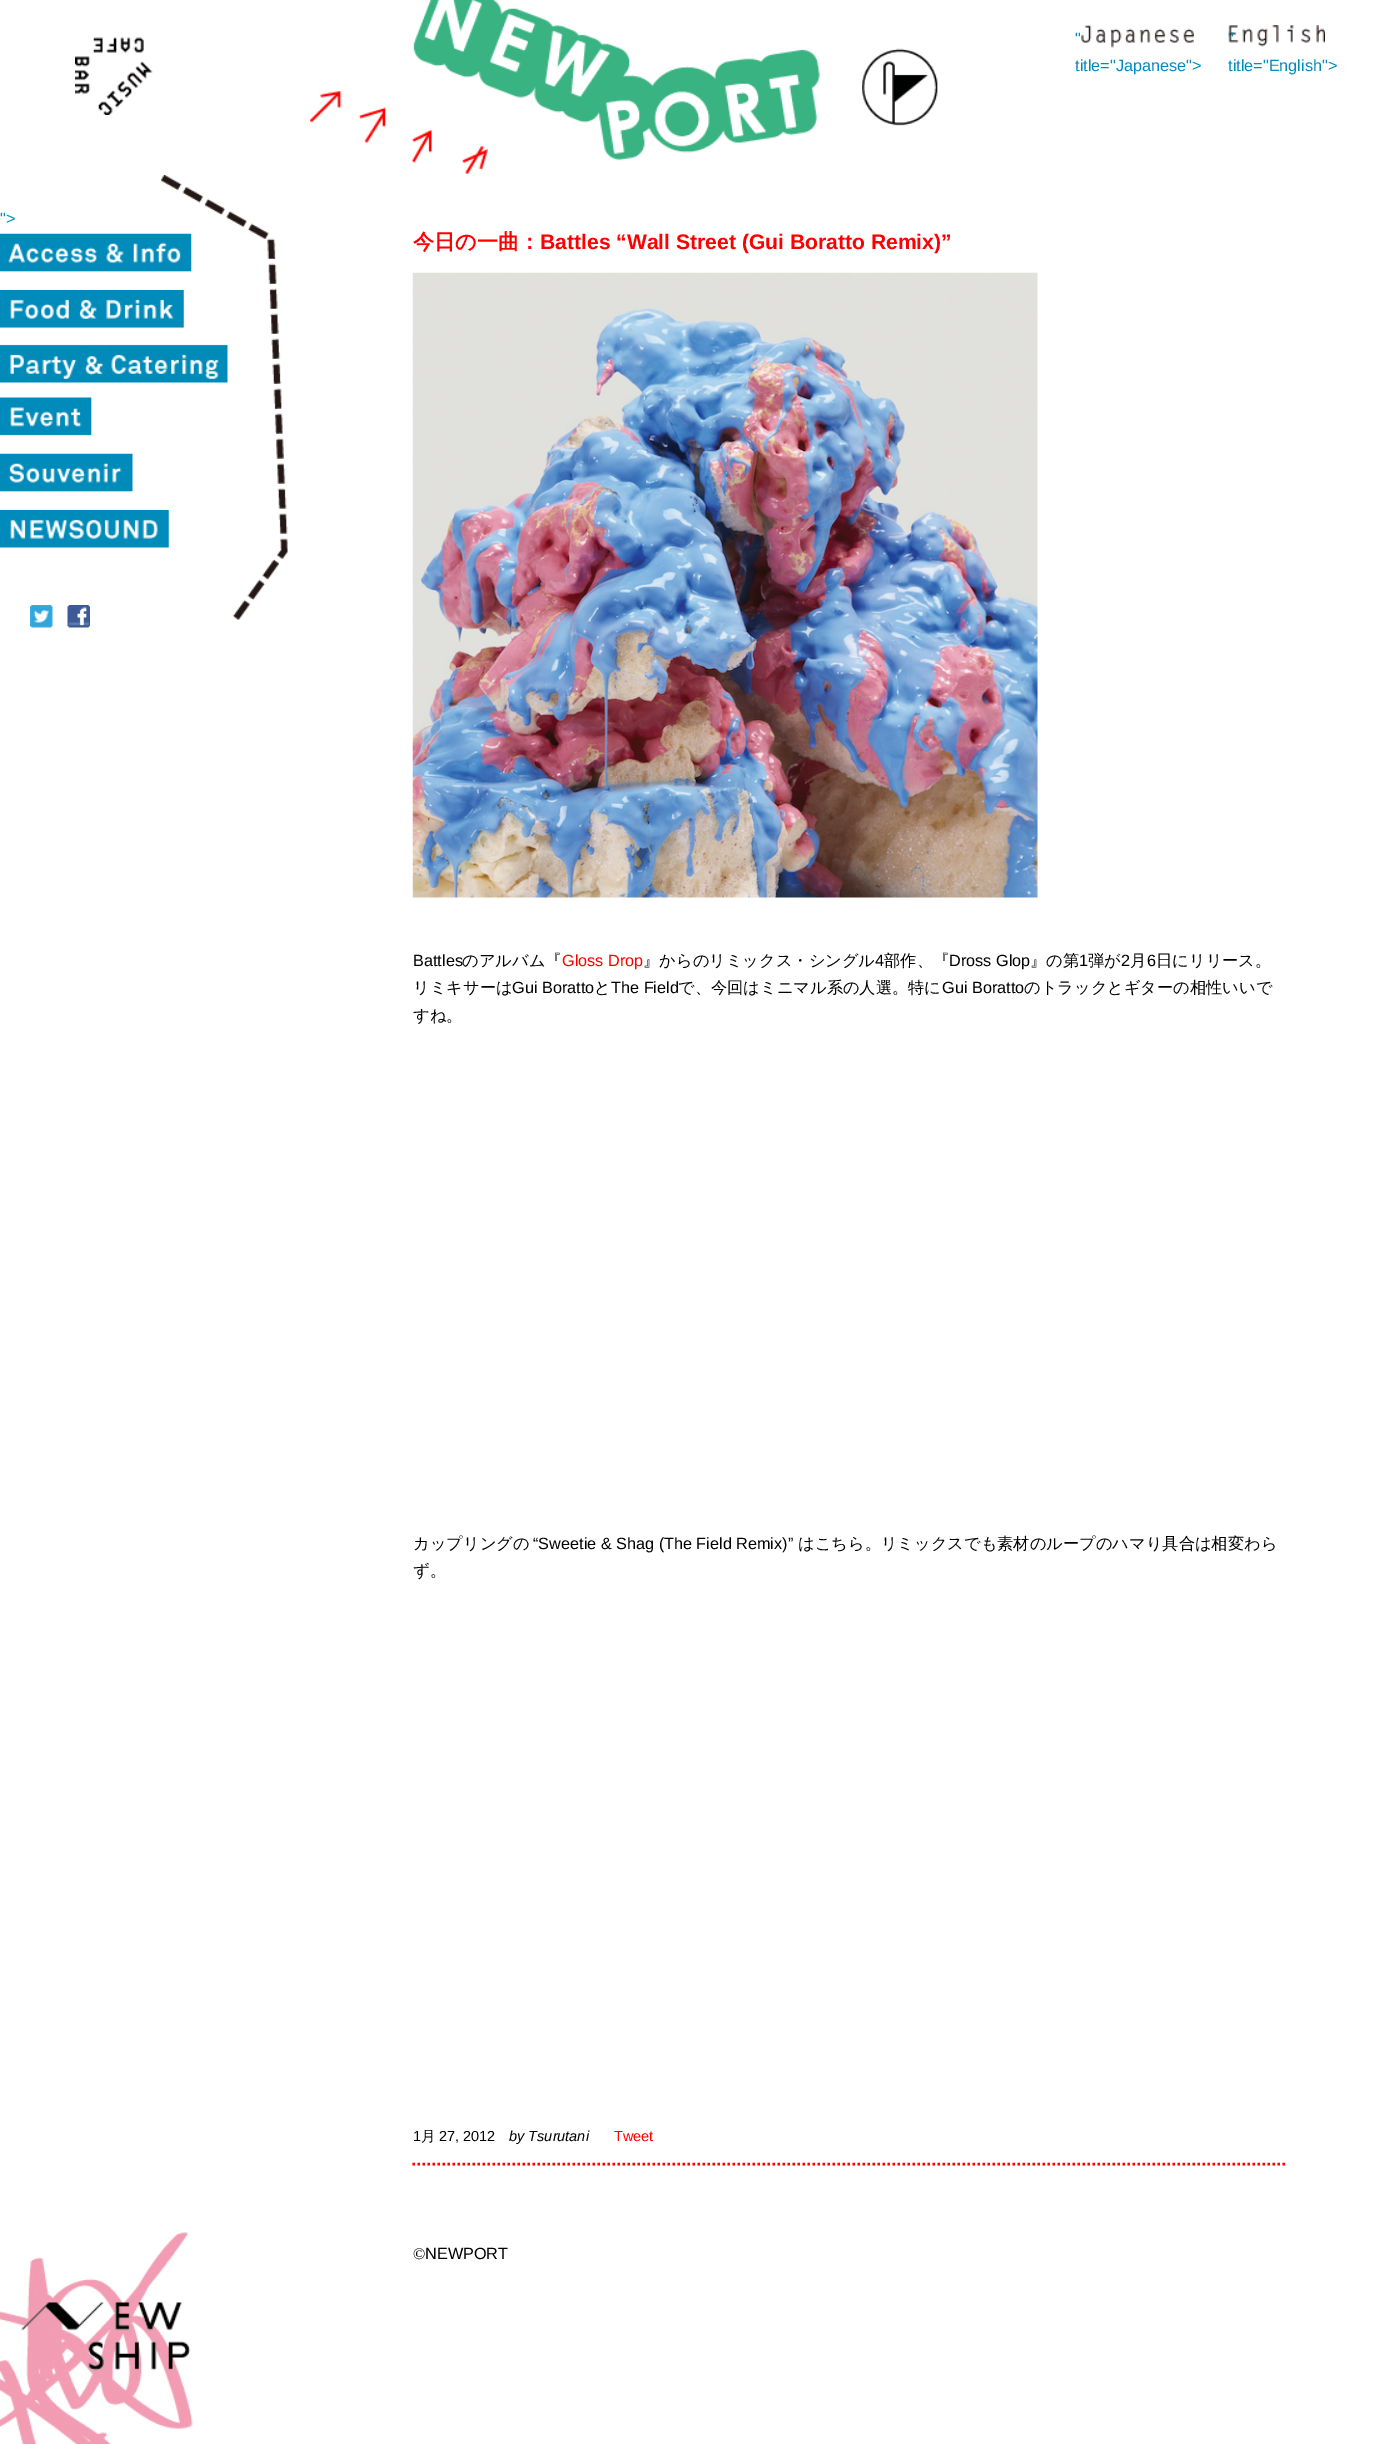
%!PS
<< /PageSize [1400 2444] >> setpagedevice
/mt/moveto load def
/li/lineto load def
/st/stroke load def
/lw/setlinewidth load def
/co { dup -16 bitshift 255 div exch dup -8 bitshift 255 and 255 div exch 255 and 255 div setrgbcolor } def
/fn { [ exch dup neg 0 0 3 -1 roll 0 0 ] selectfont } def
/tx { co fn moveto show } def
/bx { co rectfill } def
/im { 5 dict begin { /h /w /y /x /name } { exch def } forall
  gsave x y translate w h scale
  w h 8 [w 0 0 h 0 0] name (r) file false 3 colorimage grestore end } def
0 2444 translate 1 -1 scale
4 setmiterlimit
0 0 1400 2444 16#FFFFFF bx
(media/1.raw) 75 37 78 78 im
(media/2.raw) 310 0 628 174 im
(media/3.raw) 1081 25 113 23 im
(media/4.raw) 1228 25 97 22 im
(media/5.raw) 161 175 127 445 im
(media/6.raw) 0 233 192 39 im
(media/7.raw) 0 290 184 38 im
(media/8.raw) 0 344 228 39 im
(media/9.raw) 0 397 92 39 im
(media/10.raw) 0 453 133 39 im
(media/11.raw) 0 510 169 38 im
(media/12.raw) 30 605 23 23 im
(media/13.raw) 67 605 23 23 im
16#FF0000 co
2.5 lw
[2.5 2.5] 0 setdash
412.5 2164 mt 1287.5 2164 li st
(media/14.raw) 412 272 626 626 im
(media/15.raw) 0 2232 193 212 im
(") 1075 44 /LiberationSans-Regular 16.25 16#008CBB tx
(title="Japanese">) 1075 71 /LiberationSans-Regular 16.25 16#008CBB tx
(") 1228 44 /LiberationSans-Regular 16.25 16#008CBB tx
(title="English">) 1228 71 /LiberationSans-Regular 16.25 16#008CBB tx
(">) 0 224 /LiberationSans-Regular 16.25 16#008CBB tx
(今日の一曲：) 413 249 /WenQuanYiZenHei-Bold 21.1 16#FF0000 tx
(Battles “Wall Street \(Gui Boratto Remix\)”) 540 249 /LiberationSans-Bold 21.1 16#FF0000 tx
(Battles) 413 966 /LiberationSans-Regular 16.25 16#000000 tx
(のアルバム『) 462 966 /WenQuanYiZenHei-Medium 16.25 16#000000 tx
(Gloss Drop) 562 966 /LiberationSans-Regular 16.25 16#FF0000 tx
(』からのリミックス・シングル) 643 966 /WenQuanYiZenHei-Medium 16.25 16#000000 tx
(4) 875 966 /LiberationSans-Regular 16.25 16#000000 tx
(部作、『) 884 966 /WenQuanYiZenHei-Medium 16.25 16#000000 tx
(Dross Glop) 949 966 /LiberationSans-Regular 16.25 16#000000 tx
(』の第) 1030 966 /WenQuanYiZenHei-Medium 16.25 16#000000 tx
(1) 1079 966 /LiberationSans-Regular 16.25 16#000000 tx
(弾が) 1088 966 /WenQuanYiZenHei-Medium 16.25 16#000000 tx
(2) 1121 966 /LiberationSans-Regular 16.25 16#000000 tx
(月) 1130 966 /WenQuanYiZenHei-Medium 16.25 16#000000 tx
(6) 1147 966 /LiberationSans-Regular 16.25 16#000000 tx
(日にリリース。) 1156 966 /WenQuanYiZenHei-Medium 16.25 16#000000 tx
(リミキサーは) 413 993 /WenQuanYiZenHei-Medium 16.25 16#000000 tx
(Gui Boratto) 512 993 /LiberationSans-Regular 16.25 16#000000 tx
(と) 594 993 /WenQuanYiZenHei-Medium 16.25 16#000000 tx
(The Field) 611 993 /LiberationSans-Regular 16.25 16#000000 tx
(で、今回はミニマル系の人選。特に) 678 993 /WenQuanYiZenHei-Medium 16.25 16#000000 tx
(Gui Boratto) 942 993 /LiberationSans-Regular 16.25 16#000000 tx
(のトラックとギターの相性いいで) 1024 993 /WenQuanYiZenHei-Medium 16.25 16#000000 tx
(すね。) 413 1021 /WenQuanYiZenHei-Medium 16.25 16#000000 tx
(カップリングの) 413 1549 /WenQuanYiZenHei-Medium 16.25 16#000000 tx
(“Sweetie & Shag \(The Field Remix\)”) 533 1549 /LiberationSans-Regular 16.25 16#000000 tx
(はこちら。リミックスでも素材のループのハマり具合は相変わら) 798 1549 /WenQuanYiZenHei-Medium 16.25 16#000000 tx
(ず。) 413 1576 /WenQuanYiZenHei-Medium 16.25 16#000000 tx
(1) 413 2141 /LiberationSans-Regular 14.5 16#000000 tx
(月) 421 2141 /WenQuanYiZenHei-Medium 14.5 16#000000 tx
(27, 2012) 439 2141 /LiberationSans-Regular 14.5 16#000000 tx
(by Tsurutani) 509 2141 /LiberationSans-Italic 14.5 16#000000 tx
(Tweet) 614 2141 /LiberationSans-Regular 14.5 16#FF0000 tx
(©) 413 2259 /LiberationSerif-Regular 16.25 16#000000 tx
(NEWPORT) 425 2259 /LiberationSans-Regular 16.25 16#000000 tx
showpage
